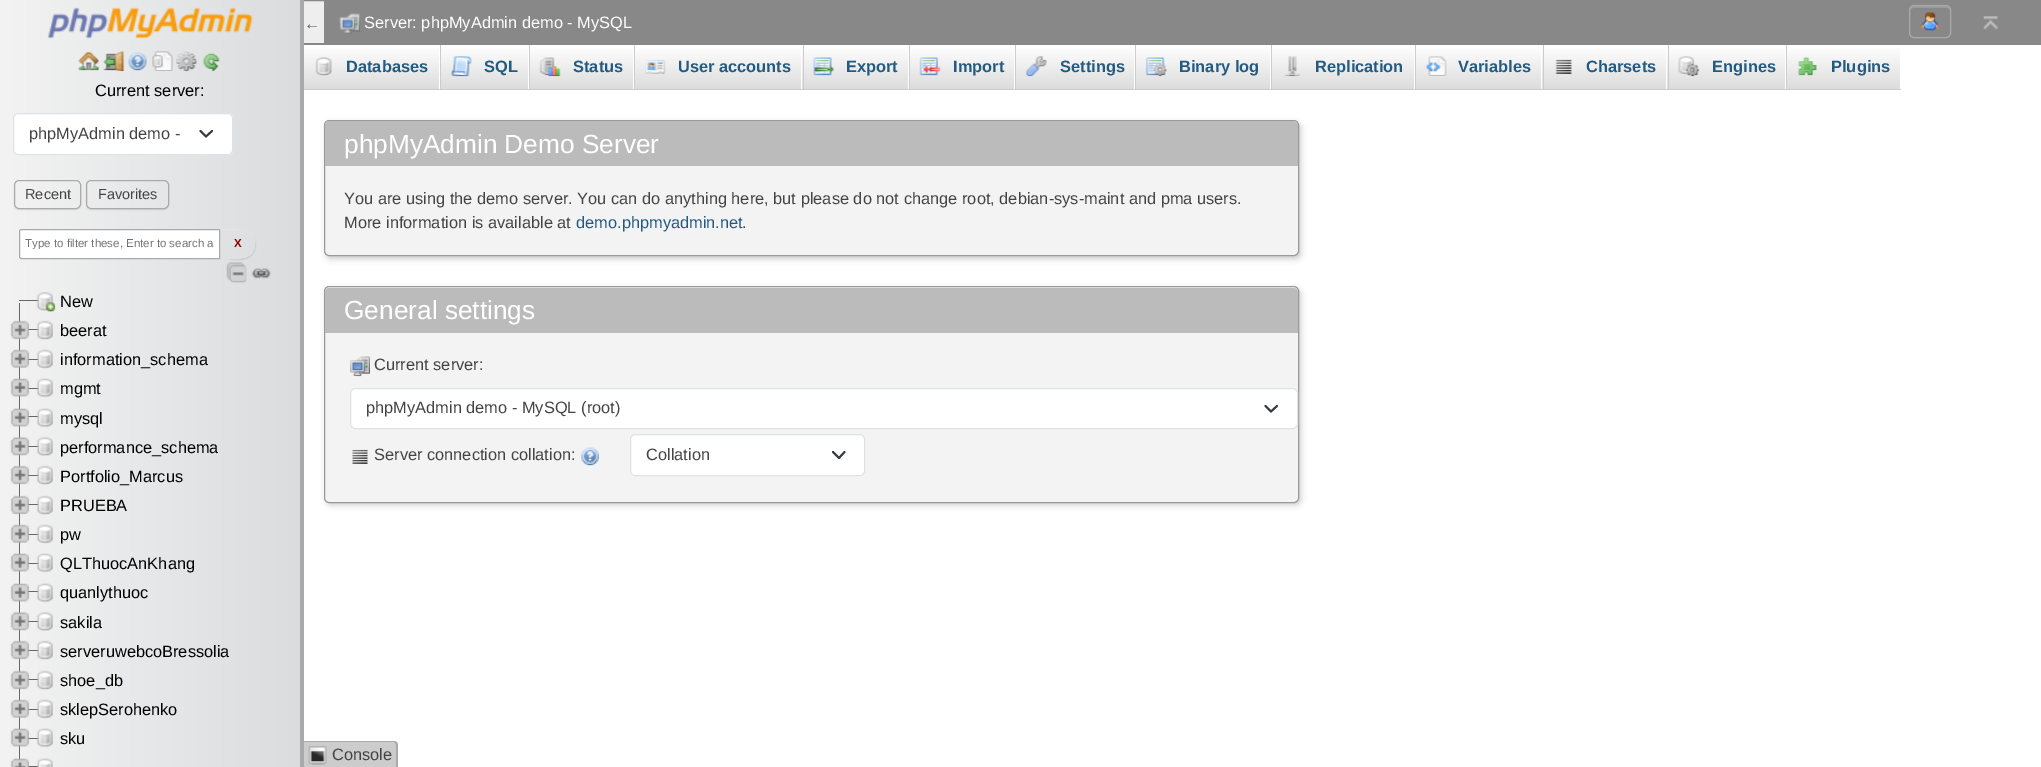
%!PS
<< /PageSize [2041 767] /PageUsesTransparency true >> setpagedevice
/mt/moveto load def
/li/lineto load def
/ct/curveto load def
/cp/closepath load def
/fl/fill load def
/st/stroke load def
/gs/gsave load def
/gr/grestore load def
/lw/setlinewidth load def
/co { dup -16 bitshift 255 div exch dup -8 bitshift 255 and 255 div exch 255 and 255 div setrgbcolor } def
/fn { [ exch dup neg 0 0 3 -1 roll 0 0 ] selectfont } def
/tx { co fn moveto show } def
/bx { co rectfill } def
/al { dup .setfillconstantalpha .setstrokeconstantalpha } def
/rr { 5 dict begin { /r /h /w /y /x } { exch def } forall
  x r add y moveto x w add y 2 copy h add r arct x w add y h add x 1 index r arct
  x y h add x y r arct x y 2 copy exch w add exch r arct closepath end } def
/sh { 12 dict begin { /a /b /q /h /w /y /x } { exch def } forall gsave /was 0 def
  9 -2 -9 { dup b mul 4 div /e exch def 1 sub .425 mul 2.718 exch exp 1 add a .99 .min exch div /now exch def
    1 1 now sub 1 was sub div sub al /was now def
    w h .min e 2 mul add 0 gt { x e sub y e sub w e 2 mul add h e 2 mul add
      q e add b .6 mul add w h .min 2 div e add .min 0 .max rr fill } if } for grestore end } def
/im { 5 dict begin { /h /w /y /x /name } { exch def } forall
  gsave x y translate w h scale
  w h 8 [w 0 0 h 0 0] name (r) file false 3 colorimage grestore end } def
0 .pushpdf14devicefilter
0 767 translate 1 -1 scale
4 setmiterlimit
0 0 2041 767 16#FFFFFF bx
gs 0 0 mt 300 0 li 300 767 li 0 767 li cp clip newpath
<< /ShadingType 2 /ColorSpace /DeviceRGB /Coords [0 384 300 384] /Extend [true true] /Function << /FunctionType 2 /Domain [0 1] /C0 [.953 .953 .953] /C1 [.855 .863 .871] /N 1 >> >> shfill gr
304 0 1737 45 16#888888 bx
304 1 20 42 16#EEEEEE bx
16#888888 co
300.5 .5 24 43 rectstroke
300 0 4 767 16#AAAAAA bx
(media/1.raw) 47 7 206 32 im
(media/2.raw) 78 51 22 20 im
(media/3.raw) 103 51 22 21 im
(media/4.raw) 128 52 19 19 im
(media/5.raw) 152 51 21 20 im
(media/6.raw) 176 51 21 21 im
(media/7.raw) 203 53 17 19 im
16#FFFFFF co
13 113 220 42 5 rr fl
16#343A40 co
1.9 lw
1 setlinecap
1 setlinejoin
200.5 131 mt 206 136.5 li 212 131 li st
16#DEE2E6 co
1 lw
0 setlinecap
0 setlinejoin
13.5 113.5 219 41 4.5 rr st
gs
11 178 mt 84 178 li 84 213 li 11 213 li cp 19 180 mt 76 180 li 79 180 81 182 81 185 ct 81 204 li 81 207 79 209 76 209 ct 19 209 li 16 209 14 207 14 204 ct 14 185 li 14 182 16 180 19 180 ct cp eoclip newpath
16#000000 co
14 181 67 29 5 .5 .07 sh
gr
0.15 al
16#FFFFFF co
19 182 mt 76 182 li 78 182 80 184 80 186 ct 80 179 72 181 66 181 ct 28 181 li 23 181 15 179 15 186 ct 15 184 17 182 19 182 ct cp fl
1 al
16#AAAAAA co
14.5 180.5 66 28 4.5 rr st
gs
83 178 mt 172 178 li 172 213 li 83 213 li cp 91 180 mt 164 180 li 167 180 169 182 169 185 ct 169 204 li 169 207 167 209 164 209 ct 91 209 li 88 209 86 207 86 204 ct 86 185 li 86 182 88 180 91 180 ct cp eoclip newpath
16#000000 co
86 181 83 29 5 .5 .07 sh
gr
0.15 al
16#FFFFFF co
91 182 mt 164 182 li 166 182 168 184 168 186 ct 168 178 157 181 152 181 ct 104 181 li 99 181 88 178 88 186 ct 88 184 89 182 91 182 ct cp fl
1 al
16#AAAAAA co
86.5 180.5 82 28 4.5 rr st
16#FFFFFF co
21.5 229.5 mt 219.5 229.5 li 219.5 258.5 li 21.5 258.5 li 20.5 258.5 19.5 257.5 19.5 256.5 ct 19.5 231.5 li 19.5 230.5 20.5 229.5 21.5 229.5 ct cp gs fl gr
16#AAAAAA co
st
(media/8.raw) 226 262 21 21 im
gs
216 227 mt 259 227 li 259 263 li 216 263 li cp 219 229 mt 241 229 li 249.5 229 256 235.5 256 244 ct 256 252.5 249.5 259 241 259 ct 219 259 li cp eoclip newpath
16#000000 co
219 230 37 30 15 .5 .07 sh
gr
0.15 al
16#FFFFFF co
219 230 mt 241 230 li 250 230 255.5 236.5 256 244.5 ct 256 244 li 256 235.5 249.5 229 241 229 ct 219 229 li cp fl
1 al
(media/9.raw) 251 268 20 11 im
19 300 25 1 16#666666 bx
(media/10.raw) 36 292 20 20 im
19 329 25 1 16#666666 bx
19 303 1 27 16#666666 bx
19 331 1 20 16#666666 bx
(media/11.raw) 10 320 20 20 im
(media/12.raw) 36 320 17 20 im
19 359 25 1 16#666666 bx
19 361 1 19 16#666666 bx
(media/13.raw) 10 349 20 19 im
(media/14.raw) 36 349 17 20 im
19 388 25 1 16#666666 bx
19 416 25 1 16#666666 bx
19 390 1 28 16#666666 bx
(media/15.raw) 10 378 20 19 im
(media/16.raw) 36 378 17 20 im
19 419 1 19 16#666666 bx
(media/17.raw) 10 408 20 19 im
(media/18.raw) 36 408 17 20 im
19 446 25 1 16#666666 bx
19 449 1 18 16#666666 bx
(media/19.raw) 10 436 20 20 im
(media/20.raw) 36 436 17 20 im
19 475 25 1 16#666666 bx
19 504 25 1 16#666666 bx
19 478 1 27 16#666666 bx
(media/21.raw) 10 465 20 20 im
(media/22.raw) 36 465 17 20 im
19 506 1 20 16#666666 bx
(media/11.raw) 10 495 20 20 im
(media/12.raw) 36 495 17 20 im
19 534 25 1 16#666666 bx
19 536 1 19 16#666666 bx
(media/13.raw) 10 524 20 19 im
(media/14.raw) 36 524 17 20 im
19 563 25 1 16#666666 bx
19 591 25 1 16#666666 bx
19 565 1 28 16#666666 bx
(media/15.raw) 10 553 20 19 im
(media/16.raw) 36 553 17 20 im
19 594 1 19 16#666666 bx
(media/17.raw) 10 583 20 19 im
(media/18.raw) 36 583 17 20 im
19 621 25 1 16#666666 bx
19 624 1 18 16#666666 bx
(media/19.raw) 10 611 20 20 im
(media/20.raw) 36 611 17 20 im
19 650 25 1 16#666666 bx
19 679 25 1 16#666666 bx
19 653 1 27 16#666666 bx
(media/21.raw) 10 640 20 20 im
(media/22.raw) 36 640 17 20 im
19 681 1 20 16#666666 bx
(media/11.raw) 10 670 20 20 im
(media/12.raw) 36 670 17 20 im
19 709 25 1 16#666666 bx
19 711 1 19 16#666666 bx
(media/13.raw) 10 699 20 19 im
(media/14.raw) 36 699 17 20 im
19 738 25 1 16#666666 bx
19 766 25 1 16#666666 bx
19 740 1 27 16#666666 bx
(media/15.raw) 10 728 20 19 im
(media/16.raw) 36 728 17 20 im
(media/23.raw) 10 758 20 9 im
(media/24.raw) 36 758 17 9 im
(media/25.raw) 339 13 21 21 im
gs 304 48 mt 439 48 li 439 89 li 304 89 li cp clip newpath
<< /ShadingType 2 /ColorSpace /DeviceRGB /Coords [371 45 371 89] /Extend [true true] /Function << /FunctionType 2 /Domain [0 1] /C0 [1 1 1] /C1 [.863 .863 .863] /N 1 >> >> shfill gr
304 89 330 1 16#CCCCCC bx
(media/26.raw) 315 57 17 19 im
gs 441 48 mt 528 48 li 528 89 li 441 89 li cp clip newpath
<< /ShadingType 2 /ColorSpace /DeviceRGB /Coords [484 45 484 89] /Extend [true true] /Function << /FunctionType 2 /Domain [0 1] /C0 [1 1 1] /C1 [.863 .863 .863] /N 1 >> >> shfill gr
440 45 1 45 16#CCCCCC bx
(media/27.raw) 451 56 21 21 im
gs 530 48 mt 633 48 li 633 89 li 530 89 li cp clip newpath
<< /ShadingType 2 /ColorSpace /DeviceRGB /Coords [581 45 581 89] /Extend [true true] /Function << /FunctionType 2 /Domain [0 1] /C0 [1 1 1] /C1 [.863 .863 .863] /N 1 >> >> shfill gr
529 45 1 45 16#CCCCCC bx
(media/28.raw) 539 57 22 20 im
gs 635 48 mt 803 48 li 803 89 li 635 89 li cp clip newpath
<< /ShadingType 2 /ColorSpace /DeviceRGB /Coords [718 45 718 89] /Extend [true true] /Function << /FunctionType 2 /Domain [0 1] /C0 [1 1 1] /C1 [.863 .863 .863] /N 1 >> >> shfill gr
801 45 1 45 16#FFFFFF bx
634 89 781 1 16#CCCCCC bx
634 45 1 45 16#CCCCCC bx
(media/29.raw) 645 60 21 14 im
gs 804 48 mt 908 48 li 908 89 li 804 89 li cp clip newpath
<< /ShadingType 2 /ColorSpace /DeviceRGB /Coords [856 45 856 89] /Extend [true true] /Function << /FunctionType 2 /Domain [0 1] /C0 [1 1 1] /C1 [.863 .863 .863] /N 1 >> >> shfill gr
803 45 1 45 16#CCCCCC bx
(media/30.raw) 813 57 22 19 im
gs 910 48 mt 1014 48 li 1014 89 li 910 89 li cp clip newpath
<< /ShadingType 2 /ColorSpace /DeviceRGB /Coords [962 45 962 89] /Extend [true true] /Function << /FunctionType 2 /Domain [0 1] /C0 [1 1 1] /C1 [.863 .863 .863] /N 1 >> >> shfill gr
909 45 1 45 16#CCCCCC bx
(media/31.raw) 919 57 22 19 im
gs 1016 48 mt 1134 48 li 1134 89 li 1016 89 li cp clip newpath
<< /ShadingType 2 /ColorSpace /DeviceRGB /Coords [1075 45 1075 89] /Extend [true true] /Function << /FunctionType 2 /Domain [0 1] /C0 [1 1 1] /C1 [.863 .863 .863] /N 1 >> >> shfill gr
1015 45 1 45 16#CCCCCC bx
(media/32.raw) 1025 56 22 21 im
gs 1136 48 mt 1270 48 li 1270 89 li 1136 89 li cp clip newpath
<< /ShadingType 2 /ColorSpace /DeviceRGB /Coords [1203 45 1203 89] /Extend [true true] /Function << /FunctionType 2 /Domain [0 1] /C0 [1 1 1] /C1 [.863 .863 .863] /N 1 >> >> shfill gr
1135 45 1 45 16#CCCCCC bx
(media/33.raw) 1145 57 22 20 im
gs 1272 48 mt 1414 48 li 1414 89 li 1272 89 li cp clip newpath
<< /ShadingType 2 /ColorSpace /DeviceRGB /Coords [1343 45 1343 89] /Extend [true true] /Function << /FunctionType 2 /Domain [0 1] /C0 [1 1 1] /C1 [.863 .863 .863] /N 1 >> >> shfill gr
1271 45 1 45 16#CCCCCC bx
(media/34.raw) 1284 56 17 21 im
gs 1416 48 mt 1543 48 li 1543 89 li 1416 89 li cp clip newpath
<< /ShadingType 2 /ColorSpace /DeviceRGB /Coords [1479 45 1479 89] /Extend [true true] /Function << /FunctionType 2 /Domain [0 1] /C0 [1 1 1] /C1 [.863 .863 .863] /N 1 >> >> shfill gr
1541 45 1 45 16#FFFFFF bx
1415 89 128 1 16#CCCCCC bx
1415 45 1 45 16#CCCCCC bx
(media/35.raw) 1426 56 21 20 im
gs 1544 48 mt 1668 48 li 1668 89 li 1544 89 li cp clip newpath
<< /ShadingType 2 /ColorSpace /DeviceRGB /Coords [1605 45 1605 89] /Extend [true true] /Function << /FunctionType 2 /Domain [0 1] /C0 [1 1 1] /C1 [.863 .863 .863] /N 1 >> >> shfill gr
1666 45 1 45 16#FFFFFF bx
1543 89 358 1 16#CCCCCC bx
1543 45 1 45 16#CCCCCC bx
(media/36.raw) 1555 59 17 15 im
gs 1669 48 mt 1785 48 li 1785 89 li 1669 89 li cp clip newpath
<< /ShadingType 2 /ColorSpace /DeviceRGB /Coords [1727 45 1727 89] /Extend [true true] /Function << /FunctionType 2 /Domain [0 1] /C0 [1 1 1] /C1 [.863 .863 .863] /N 1 >> >> shfill gr
1668 45 1 45 16#CCCCCC bx
(media/37.raw) 1678 56 22 21 im
gs 1787 48 mt 1900 48 li 1900 89 li 1787 89 li cp clip newpath
<< /ShadingType 2 /ColorSpace /DeviceRGB /Coords [1844 45 1844 89] /Extend [true true] /Function << /FunctionType 2 /Domain [0 1] /C0 [1 1 1] /C1 [.863 .863 .863] /N 1 >> >> shfill gr
1786 45 1 45 16#CCCCCC bx
(media/38.raw) 1798 57 19 19 im
16#9A9A9A co
1914 8 mt 1946 8 li 1948 8 1950 9 1950 11 ct 1950 5 1945 6 1941 6 ct 1919 6 li 1915 6 1910 5 1910 11 ct 1910 9 1912 8 1914 8 ct cp fl
16#AAAAAA co
1909.5 5.5 41 32 4.5 rr st
(media/39.raw) 1921 12 18 19 im
(media/40.raw) 1983 16 15 14 im
16#CCCCCC co
326 123 975 136 5 3 1 sh
16#F3F3F3 co
324.5 120.5 974 135 4.5 rr gs fl gr
16#999999 co
st
16#BBBBBB co
329 121 mt 1294 121 li 1296 121 1298 123 1298 125 ct 1298 166 li 325 166 li 325 125 li 325 123 327 121 329 121 ct cp fl
16#CCCCCC co
326 289 975 216 5 3 1 sh
16#F3F3F3 co
324.5 286.5 974 216 4.5 rr gs fl gr
16#999999 co
st
16#BBBBBB co
329 288 mt 1294 288 li 1296 288 1298 290 1298 292 ct 1298 333 li 325 333 li 325 292 li 325 290 327 288 329 288 ct cp fl
(media/41.raw) 350 356 20 21 im
16#FFFFFF co
350 388 948 41 5 rr fl
16#343A40 co
1.9 lw
1 setlinecap
1 setlinejoin
1265.5 406 mt 1271 411.5 li 1277 406 li st
16#DEE2E6 co
1 lw
0 setlinecap
0 setlinejoin
350.5 388.5 947 40 4.5 rr st
(media/42.raw) 352 449 16 15 im
(media/43.raw) 581 447 18 19 im
16#FFFFFF co
630 434 235 42 5 rr fl
16#343A40 co
1.9 lw
1 setlinecap
1 setlinejoin
833 452 mt 839 458 li 844.5 452 li st
16#DEE2E6 co
1 lw
0 setlinecap
0 setlinejoin
630.5 434.5 234 41 4.5 rr st
16#CCCCCC co
304 741 mt 394 741 li 396 741 398 743 398 745 ct 398 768 li 304 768 li cp fl
16#AAAAAA co
304 741 mt 394 741 li 396 741 398 743 398 745 ct 398 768 li 304 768 li cp 304 742 mt 394 742 li 395 742 396 744 396 745 ct 396 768 li 304 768 li cp eofill
(media/44.raw) 308 746 19 19 im
(←) 304 29 /LiberationSans-Bold 16.4 16#555555 tx
(Current server:) 95 96 /LiberationSans-Regular 16.4 16#000000 tx
(phpMyAdmin demo -) 29 139 /LiberationSans-Regular 16.4 16#444444 tx
(Recent) 25 199 /LiberationSans-Regular 14.5 16#444444 tx
(Favorites) 98 199 /LiberationSans-Regular 14.5 16#444444 tx
gs
25 236 189 13 rectclip
(Type to filter these, Enter to search a) 25 247 /LiberationSans-Regular 11.5 16#737373 tx
gr
(X) 234 247 /LiberationSans-Bold 11.5 16#880000 tx
(New) 60 307 /LiberationSans-Regular 16.4 16#000000 tx
(beerat) 60 336 /LiberationSans-Regular 16.4 16#000000 tx
(information_schema) 60 365 /LiberationSans-Regular 16.4 16#000000 tx
(mgmt) 60 394 /LiberationSans-Regular 16.4 16#000000 tx
(mysql) 60 424 /LiberationSans-Regular 16.4 16#000000 tx
(performance_schema) 60 453 /LiberationSans-Regular 16.4 16#000000 tx
(Portfolio_Marcus) 60 482 /LiberationSans-Regular 16.4 16#000000 tx
(PRUEBA) 60 511 /LiberationSans-Regular 16.4 16#000000 tx
(pw) 60 540 /LiberationSans-Regular 16.4 16#000000 tx
(QLThuocAnKhang) 60 569 /LiberationSans-Regular 16.4 16#000000 tx
(quanlythuoc) 60 598 /LiberationSans-Regular 16.4 16#000000 tx
(sakila) 60 628 /LiberationSans-Regular 16.4 16#000000 tx
(serveruwebcoBressolia) 60 657 /LiberationSans-Regular 16.4 16#000000 tx
(shoe_db) 60 686 /LiberationSans-Regular 16.4 16#000000 tx
(sklepSerohenko) 60 715 /LiberationSans-Regular 16.4 16#000000 tx
(sku) 60 744 /LiberationSans-Regular 16.4 16#000000 tx
(Server: phpMyAdmin demo - MySQL) 364 28 /LiberationSans-Regular 16.4 16#FFFFFF tx
(Databases) 346 72 /LiberationSans-Bold 16.4 16#235A81 tx
(SQL) 484 72 /LiberationSans-Bold 16.4 16#235A81 tx
(Status) 573 72 /LiberationSans-Bold 16.4 16#235A81 tx
(User accounts) 678 72 /LiberationSans-Bold 16.4 16#235A81 tx
(Export) 846 72 /LiberationSans-Bold 16.4 16#235A81 tx
(Import) 953 72 /LiberationSans-Bold 16.4 16#235A81 tx
(Settings) 1060 72 /LiberationSans-Bold 16.4 16#235A81 tx
(Binary log) 1179 72 /LiberationSans-Bold 16.4 16#235A81 tx
(Replication) 1315 72 /LiberationSans-Bold 16.4 16#235A81 tx
(Variables) 1458 72 /LiberationSans-Bold 16.4 16#235A81 tx
(Charsets) 1586 72 /LiberationSans-Bold 16.4 16#235A81 tx
(Engines) 1712 72 /LiberationSans-Bold 16.4 16#235A81 tx
(Plugins) 1831 72 /LiberationSans-Bold 16.4 16#235A81 tx
(phpMyAdmin Demo Server) 344 153 /LiberationSans-Regular 26.25 16#FFFFFF tx
(You are using the demo server. You can do anything here, but please do not change root, debian-sys-maint and pma users.) 344 204 /LiberationSans-Regular 16.4 16#444444 tx
(More information is available at) 344 228 /LiberationSans-Regular 16.4 16#444444 tx
(demo.phpmyadmin.net) 576 228 /LiberationSans-Regular 16.4 16#235A81 tx
(.) 742 228 /LiberationSans-Regular 16.4 16#444444 tx
(General settings) 344 319 /LiberationSans-Regular 26.25 16#FFFFFF tx
(Current server:) 374 370 /LiberationSans-Regular 16.4 16#444444 tx
(phpMyAdmin demo - MySQL \(root\)) 366 413 /LiberationSans-Regular 16.4 16#444444 tx
(Server connection collation:) 374 460 /LiberationSans-Regular 16.4 16#444444 tx
(Collation) 646 460 /LiberationSans-Regular 16.4 16#444444 tx
(Console) 332 760 /LiberationSans-Regular 16.4 16#444444 tx
.poppdf14devicefilter showpage
